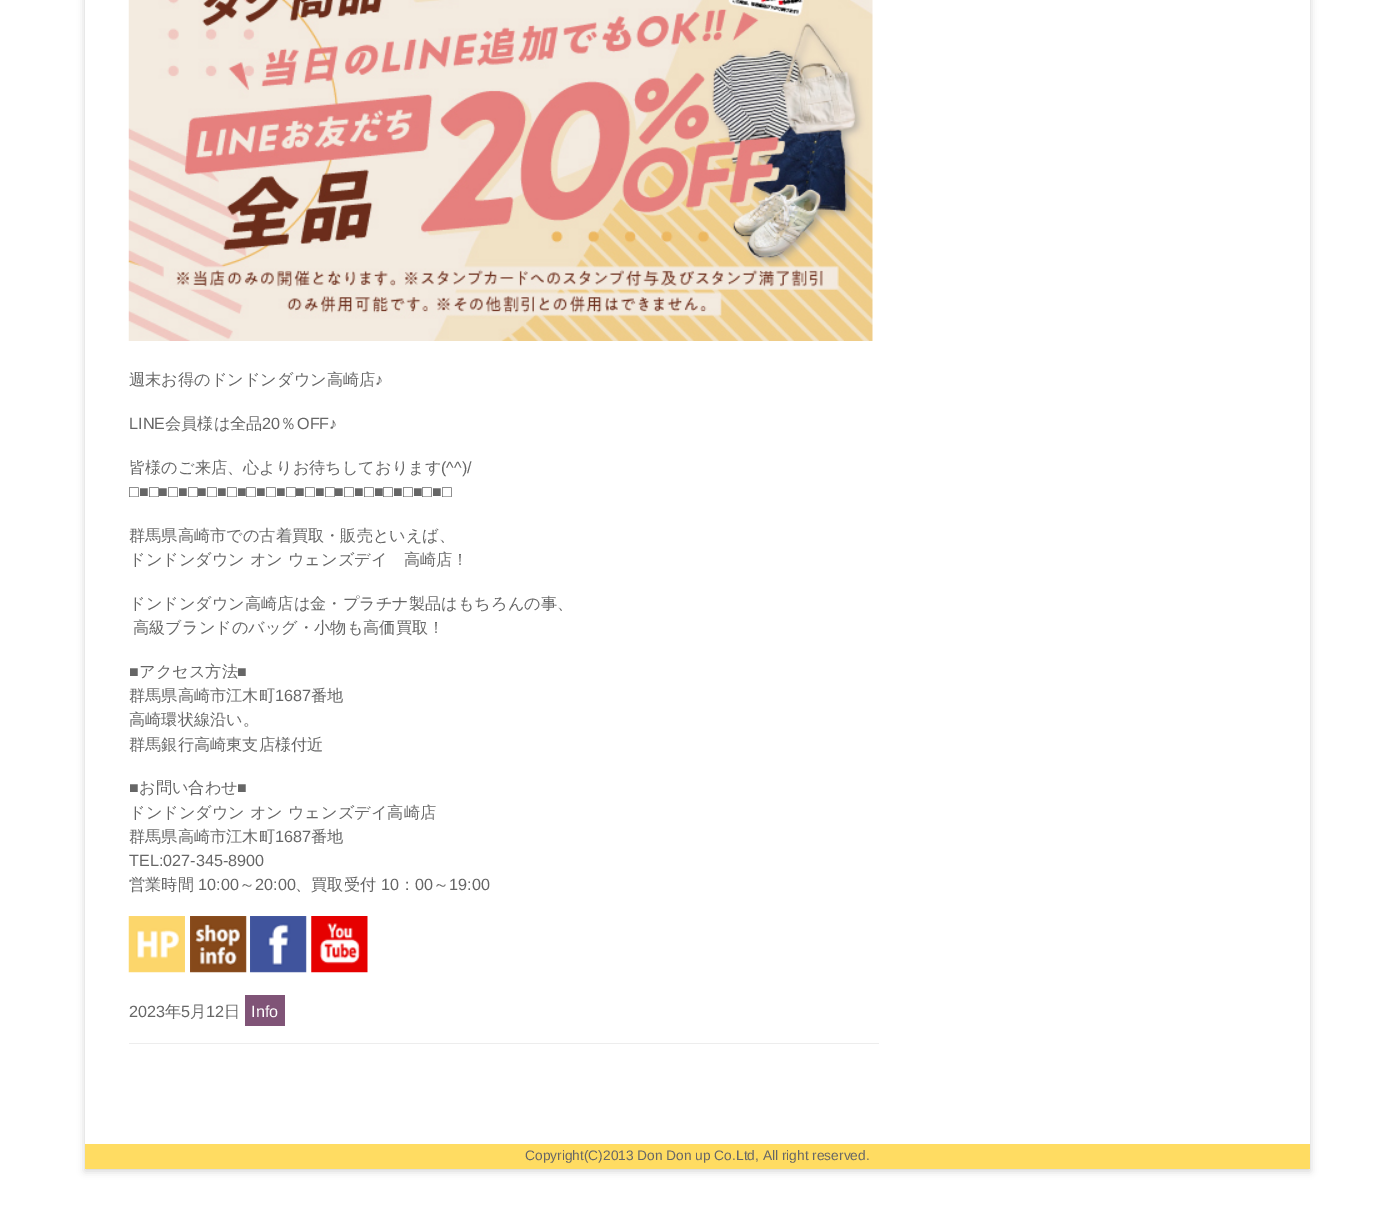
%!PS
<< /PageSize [1395 1230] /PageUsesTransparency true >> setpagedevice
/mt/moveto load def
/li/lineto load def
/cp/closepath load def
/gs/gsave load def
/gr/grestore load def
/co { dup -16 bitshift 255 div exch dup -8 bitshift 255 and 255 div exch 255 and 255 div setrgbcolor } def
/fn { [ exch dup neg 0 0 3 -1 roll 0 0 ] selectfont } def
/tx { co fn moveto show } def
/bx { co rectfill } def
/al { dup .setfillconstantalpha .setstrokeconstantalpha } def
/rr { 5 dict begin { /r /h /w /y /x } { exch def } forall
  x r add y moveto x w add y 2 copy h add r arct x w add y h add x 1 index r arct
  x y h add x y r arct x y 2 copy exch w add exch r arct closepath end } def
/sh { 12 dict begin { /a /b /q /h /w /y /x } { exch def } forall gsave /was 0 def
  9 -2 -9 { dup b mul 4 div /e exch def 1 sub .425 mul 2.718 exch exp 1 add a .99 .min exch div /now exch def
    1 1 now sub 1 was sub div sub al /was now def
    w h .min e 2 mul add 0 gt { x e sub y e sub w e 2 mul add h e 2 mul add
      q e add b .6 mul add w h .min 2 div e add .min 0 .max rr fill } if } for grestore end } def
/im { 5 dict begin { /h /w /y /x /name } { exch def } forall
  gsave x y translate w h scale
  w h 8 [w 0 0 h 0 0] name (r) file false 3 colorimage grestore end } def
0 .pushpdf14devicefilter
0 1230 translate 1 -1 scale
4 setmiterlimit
0 0 1395 1230 16#FFFFFF bx
gs
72 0 mt 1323 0 li 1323 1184 li 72 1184 li cp 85 -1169 mt 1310 -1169 li 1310 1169 li 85 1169 li cp eoclip newpath
16#646464 co
85 -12 1225 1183 0 4 .3 sh
gr
129 1043 750 1 16#EDEDED bx
(media/1.raw) 128 0 745 341 im
(media/2.raw) 128 916 57 57 im
(media/3.raw) 190 916 57 57 im
(media/4.raw) 250 916 57 57 im
(media/5.raw) 311 916 57 57 im
245 995 40 31 16#805477 bx
85 1144 1225 25 16#FFDC62 bx
(週末お得のドンドンダウン高崎店) 129 385 /WenQuanYiZenHei-Medium 16.2 16#666666 tx
(♪) 375 385 /LiberationSans-Regular 16.2 16#666666 tx
(LINE) 129 429 /LiberationSans-Regular 16.2 16#666666 tx
(会員様は全品) 165 429 /WenQuanYiZenHei-Medium 16.2 16#666666 tx
(20) 262 429 /LiberationSans-Regular 16.2 16#666666 tx
(％) 280 429 /WenQuanYiZenHei-Medium 16.2 16#666666 tx
(OFF♪) 297 429 /LiberationSans-Regular 16.2 16#666666 tx
(皆様のご来店、心よりお待ちしております) 129 473 /WenQuanYiZenHei-Medium 16.2 16#666666 tx
(\(^^\)/) 441 473 /LiberationSans-Regular 16.2 16#666666 tx
(□■□■□■□■□■□■□■□■□■□■□■□■□■□■□■□■□) 129 497 /LiberationSans-Regular 16.2 16#666666 tx
(群馬県高崎市での古着買取・販売といえば、) 129 541 /WenQuanYiZenHei-Medium 16.2 16#666666 tx
(ドンドンダウン オン ウェンズデイ　高崎店！) 129 565 /WenQuanYiZenHei-Medium 16.2 16#666666 tx
(ドンドンダウン高崎店は金・プラチナ製品はもちろんの事、) 129 609 /WenQuanYiZenHei-Medium 16.2 16#666666 tx
(高級ブランドのバッグ・小物も高価買取！) 133 633 /WenQuanYiZenHei-Medium 16.2 16#666666 tx
(■) 129 677 /LiberationSans-Regular 16.2 16#666666 tx
(アクセス方法) 139 677 /WenQuanYiZenHei-Medium 16.2 16#666666 tx
(■) 237 677 /LiberationSans-Regular 16.2 16#666666 tx
(群馬県高崎市江木町) 129 701 /WenQuanYiZenHei-Medium 16.2 16#666666 tx
(1687) 275 701 /LiberationSans-Regular 16.2 16#666666 tx
(番地) 311 701 /WenQuanYiZenHei-Medium 16.2 16#666666 tx
(高崎環状線沿い。) 129 725 /WenQuanYiZenHei-Medium 16.2 16#666666 tx
(群馬銀行高崎東支店様付近) 129 750 /WenQuanYiZenHei-Medium 16.2 16#666666 tx
(■) 129 793 /LiberationSans-Regular 16.2 16#666666 tx
(お問い合わせ) 139 793 /WenQuanYiZenHei-Medium 16.2 16#666666 tx
(■) 237 793 /LiberationSans-Regular 16.2 16#666666 tx
(ドンドンダウン オン ウェンズデイ高崎店) 129 818 /WenQuanYiZenHei-Medium 16.2 16#666666 tx
(群馬県高崎市江木町) 129 842 /WenQuanYiZenHei-Medium 16.2 16#666666 tx
(1687) 275 842 /LiberationSans-Regular 16.2 16#666666 tx
(番地) 311 842 /WenQuanYiZenHei-Medium 16.2 16#666666 tx
(TEL:027-345-8900) 129 866 /LiberationSans-Regular 16.2 16#666666 tx
(営業時間) 129 890 /WenQuanYiZenHei-Medium 16.2 16#666666 tx
(10:00) 198 890 /LiberationSans-Regular 16.2 16#666666 tx
(～) 239 890 /WenQuanYiZenHei-Medium 16.2 16#666666 tx
(20:00) 255 890 /LiberationSans-Regular 16.2 16#666666 tx
(、買取受付) 295 890 /WenQuanYiZenHei-Medium 16.2 16#666666 tx
(10) 381 890 /LiberationSans-Regular 16.2 16#666666 tx
(：) 399 890 /WenQuanYiZenHei-Medium 16.2 16#666666 tx
(00) 415 890 /LiberationSans-Regular 16.2 16#666666 tx
(～) 433 890 /WenQuanYiZenHei-Medium 16.2 16#666666 tx
(19:00) 449 890 /LiberationSans-Regular 16.2 16#666666 tx
(2023) 129 1017 /LiberationSans-Regular 16.2 16#666666 tx
(年) 165 1017 /WenQuanYiZenHei-Medium 16.2 16#666666 tx
(5) 181 1017 /LiberationSans-Regular 16.2 16#666666 tx
(月) 190 1017 /WenQuanYiZenHei-Medium 16.2 16#666666 tx
(12) 206 1017 /LiberationSans-Regular 16.2 16#666666 tx
(日) 224 1017 /WenQuanYiZenHei-Medium 16.2 16#666666 tx
(Info) 251 1017 /LiberationSans-Regular 16.2 16#FFFFFF tx
(Copyright\(C\)2013 Don Don up Co.Ltd, All right reserved.) 525 1160 /LiberationSans-Regular 13.75 16#666666 tx
.poppdf14devicefilter showpage
